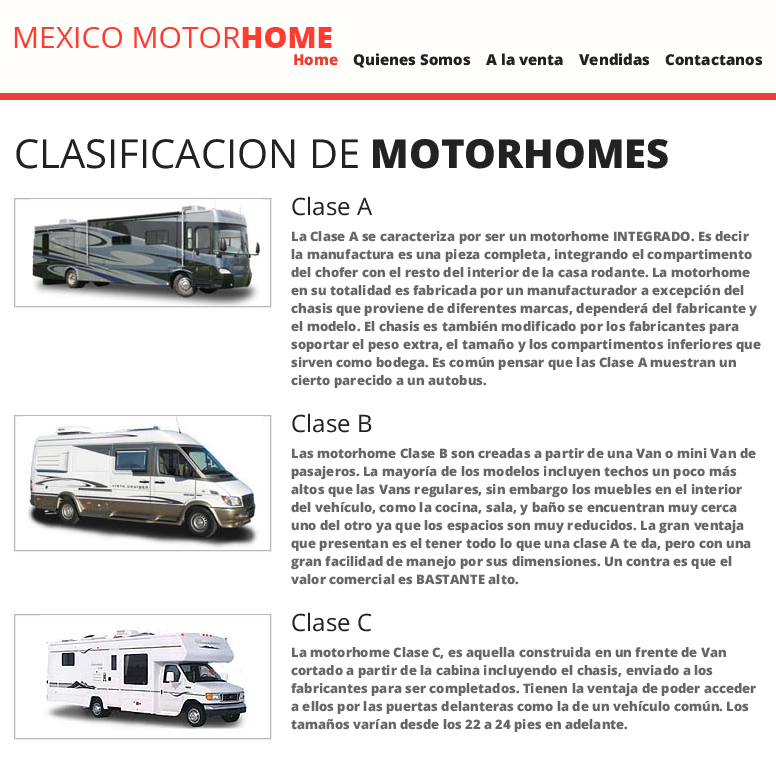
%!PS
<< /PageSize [776 763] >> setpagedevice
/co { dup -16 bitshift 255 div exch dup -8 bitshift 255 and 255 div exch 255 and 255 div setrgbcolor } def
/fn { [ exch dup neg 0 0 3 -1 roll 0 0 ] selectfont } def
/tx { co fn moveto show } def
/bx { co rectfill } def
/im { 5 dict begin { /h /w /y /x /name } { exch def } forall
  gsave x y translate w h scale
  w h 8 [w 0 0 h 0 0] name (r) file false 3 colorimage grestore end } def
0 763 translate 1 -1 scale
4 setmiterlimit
0 0 776 763 16#FFFFFF bx
0 0 776 93 16#FFFEFB bx
0 93 776 7 16#EB3E35 bx
(media/1.raw) 14 27 318 21 im
16#BFB5B5 co
14.5 198.5 256 108 rectstroke
(media/2.raw) 31 199 232 107 im
14.5 415.5 256 135 rectstroke
(media/3.raw) 23 416 240 134 im
14.5 614.5 256 124 rectstroke
(media/4.raw) 40 615 230 117 im
(Home) 293 65 /OpenSans-ExtraBold 15 16#EB3E35 tx
(Quienes Somos) 353 65 /OpenSans-ExtraBold 15 16#222222 tx
(A la venta) 486 65 /OpenSans-ExtraBold 15 16#222222 tx
(Vendidas) 579 65 /OpenSans-ExtraBold 15 16#222222 tx
(Contactanos) 665 65 /OpenSans-ExtraBold 15 16#222222 tx
(CLASIFICACION DE) 14 168 /OpenSans-Regular 40 16#222222 tx
(MOTORHOMES) 370 168 /OpenSans-ExtraBold 40 16#222222 tx
(Clase A) 291 215 /OpenSans-Regular 24 16#222222 tx
(La Clase A se caracteriza por ser un motorhome INTEGRADO. Es decir) 291 241 /OpenSans-ExtraBold 13 16#666666 tx
(la manufactura es una pieza completa, integrando el compartimento) 291 259 /OpenSans-ExtraBold 13 16#666666 tx
(del chofer con el resto del interior de la casa rodante. La motorhome) 291 277 /OpenSans-ExtraBold 13 16#666666 tx
(en su totalidad es fabricada por un manufacturador a excepción del) 291 295 /OpenSans-ExtraBold 13 16#666666 tx
(chasis que proviene de diferentes marcas, dependerá del fabricante y) 291 313 /OpenSans-ExtraBold 13 16#666666 tx
(el modelo. El chasis es también modificado por los fabricantes para) 291 331 /OpenSans-ExtraBold 13 16#666666 tx
(soportar el peso extra, el tamaño y los compartimentos inferiores que) 291 349 /OpenSans-ExtraBold 13 16#666666 tx
(sirven como bodega. Es común pensar que las Clase A muestran un) 291 367 /OpenSans-ExtraBold 13 16#666666 tx
(cierto parecido a un autobus.) 291 385 /OpenSans-ExtraBold 13 16#666666 tx
(Clase B) 291 432 /OpenSans-Regular 24 16#222222 tx
(Las motorhome Clase B son creadas a partir de una Van o mini Van de) 291 458 /OpenSans-ExtraBold 13 16#666666 tx
(pasajeros. La mayoría de los modelos incluyen techos un poco más) 291 476 /OpenSans-ExtraBold 13 16#666666 tx
(altos que las Vans regulares, sin embargo los muebles en el interior) 291 494 /OpenSans-ExtraBold 13 16#666666 tx
(del vehículo, como la cocina, sala, y baño se encuentran muy cerca) 291 512 /OpenSans-ExtraBold 13 16#666666 tx
(uno del otro ya que los espacios son muy reducidos. La gran ventaja) 291 530 /OpenSans-ExtraBold 13 16#666666 tx
(que presentan es el tener todo lo que una clase A te da, pero con una) 291 548 /OpenSans-ExtraBold 13 16#666666 tx
(gran facilidad de manejo por sus dimensiones. Un contra es que el) 291 566 /OpenSans-ExtraBold 13 16#666666 tx
(valor comercial es BASTANTE alto.) 291 584 /OpenSans-ExtraBold 13 16#666666 tx
(Clase C) 291 631 /OpenSans-Regular 24 16#222222 tx
(La motorhome Clase C, es aquella construida en un frente de Van) 291 657 /OpenSans-ExtraBold 13 16#666666 tx
(cortado a partir de la cabina incluyendo el chasis, enviado a los) 291 675 /OpenSans-ExtraBold 13 16#666666 tx
(fabricantes para ser completados. Tienen la ventaja de poder acceder) 291 693 /OpenSans-ExtraBold 13 16#666666 tx
(a ellos por las puertas delanteras como la de un vehículo común. Los) 291 711 /OpenSans-ExtraBold 13 16#666666 tx
(tamaños varían desde los 22 a 24 pies en adelante.) 291 729 /OpenSans-ExtraBold 13 16#666666 tx
showpage
